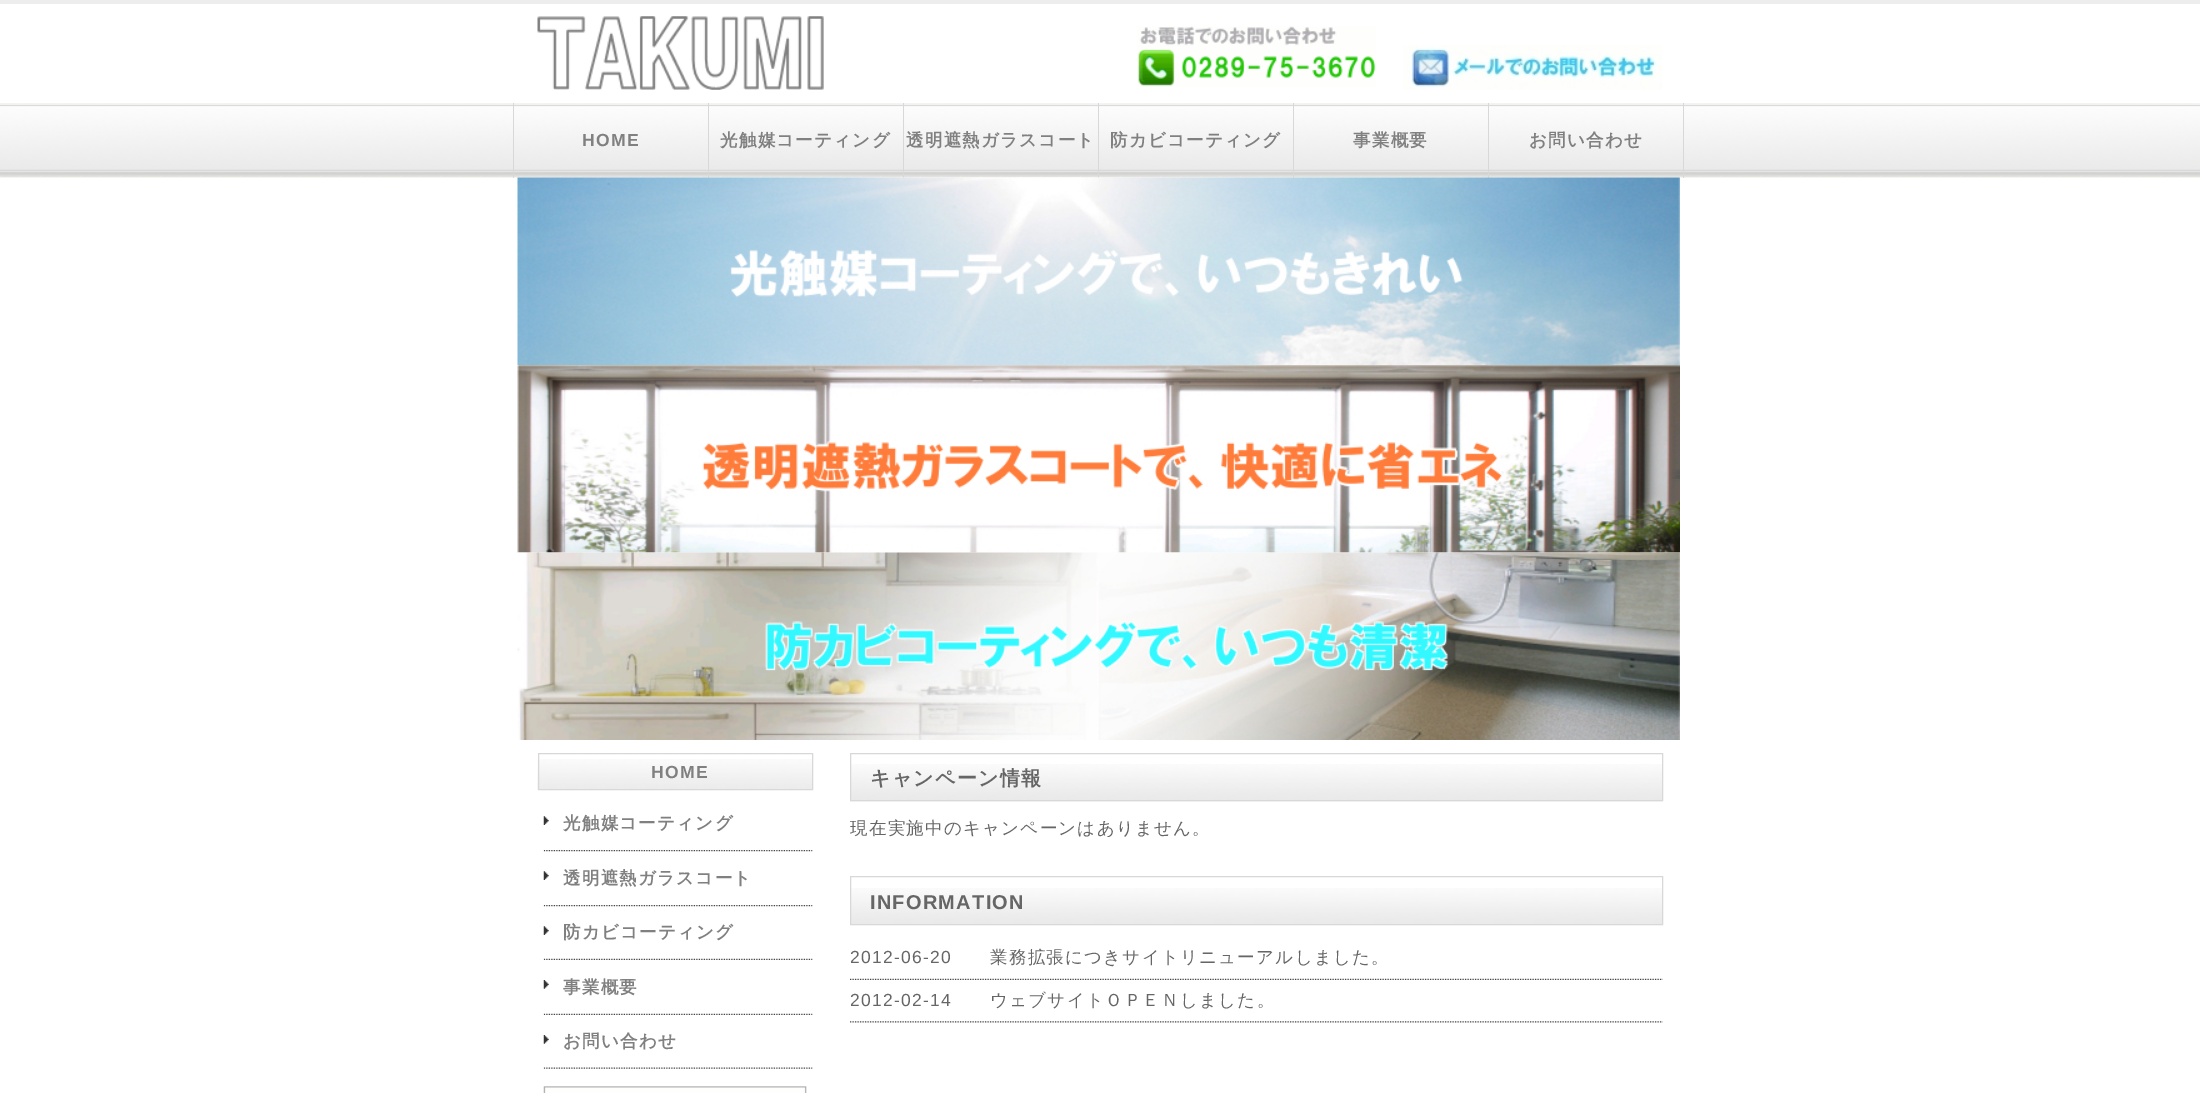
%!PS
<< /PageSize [2200 1093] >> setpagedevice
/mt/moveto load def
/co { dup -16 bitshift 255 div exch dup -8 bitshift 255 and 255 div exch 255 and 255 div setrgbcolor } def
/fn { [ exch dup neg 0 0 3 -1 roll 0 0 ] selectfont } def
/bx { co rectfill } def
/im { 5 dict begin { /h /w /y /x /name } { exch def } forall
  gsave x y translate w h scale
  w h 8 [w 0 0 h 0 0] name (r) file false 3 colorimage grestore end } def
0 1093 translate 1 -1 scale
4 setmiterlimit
0 0 2200 1093 16#FFFFFF bx
0 0 2200 4 16#EDEDED bx
(media/1.raw) 537 16 287 74 im
(media/2.raw) 1137 26 239 61 im
(media/3.raw) 1403 45 259 45 im
(media/4.raw) 0 103 2200 75 im
708 103 1 75 16#D8D8D8 bx
513 103 1 75 16#D8D8D8 bx
903 103 1 75 16#D8D8D8 bx
1098 103 1 75 16#D8D8D8 bx
1293 103 1 75 16#D8D8D8 bx
1488 103 1 75 16#D8D8D8 bx
1683 103 1 75 16#D8D8D8 bx
(media/5.raw) 517 177 1163 188 im
(media/6.raw) 517 365 1163 188 im
(media/7.raw) 517 552 1163 188 im
(media/8.raw) 537 759 275 31 im
538.5 753.5 274 36 rectstroke
(media/9.raw) 543 850 270 2 im
(media/10.raw) 543 816 6 9 im
(media/9.raw) 543 905 270 2 im
(media/10.raw) 543 871 6 9 im
(media/11.raw) 543 958 270 2 im
(media/10.raw) 543 926 6 9 im
(media/11.raw) 543 1013 270 2 im
(media/12.raw) 543 980 6 9 im
(media/13.raw) 543 1067 270 2 im
(media/12.raw) 543 1035 6 9 im
(media/14.raw) 543 1086 264 7 im
(media/15.raw) 850 764 813 38 im
850.5 753.5 812 47 rectstroke
(media/16.raw) 851 888 811 36 im
850.5 876.5 812 48 rectstroke
(media/17.raw) 850 978 813 2 im
(media/18.raw) 850 1021 813 2 im
/LiberationSans-Bold 17.5 fn
16#808080 co
582 146 mt 1.25 0 (HOME) ashow
/WenQuanYiZenHei-Bold 17.5 fn
720 146 mt 1.25 0 (光触媒コーティング) ashow
906 146 mt 1.25 0 (透明遮熱ガラスコート) ashow
1110 146 mt 1.25 0 (防カビコーティング) ashow
1353 146 mt 1.25 0 (事業概要) ashow
1529 146 mt 1.25 0 (お問い合わせ) ashow
/LiberationSans-Bold 17.5 fn
651 778 mt 1.25 0 (HOME) ashow
/WenQuanYiZenHei-Bold 17.5 fn
563 829 mt 1.25 0 (光触媒コーティング) ashow
563 884 mt 1.25 0 (透明遮熱ガラスコート) ashow
563 938 mt 1.25 0 (防カビコーティング) ashow
563 993 mt 1.25 0 (事業概要) ashow
563 1047 mt 1.25 0 (お問い合わせ) ashow
/WenQuanYiZenHei-Bold 20 fn
16#666666 co
870 785 mt 1.25 0 (キャンペーン情報) ashow
/WenQuanYiZenHei-Medium 17.5 fn
850 834 mt 1.25 0 (現在実施中のキャンペーンはありません。) ashow
/LiberationSans-Bold 20 fn
870 909 mt 1.25 0 (INFORMATION) ashow
/LiberationSans-Regular 17.5 fn
850 963 mt 1.25 0 (2012-06-20) ashow
/WenQuanYiZenHei-Medium 17.5 fn
990 963 mt 1.25 0 (業務拡張につきサイトリニューアルしました。) ashow
/LiberationSans-Regular 17.5 fn
850 1006 mt 1.25 0 (2012-02-14) ashow
/WenQuanYiZenHei-Medium 17.5 fn
990 1006 mt 1.25 0 (ウェブサイトＯＰＥＮしました。) ashow
showpage
